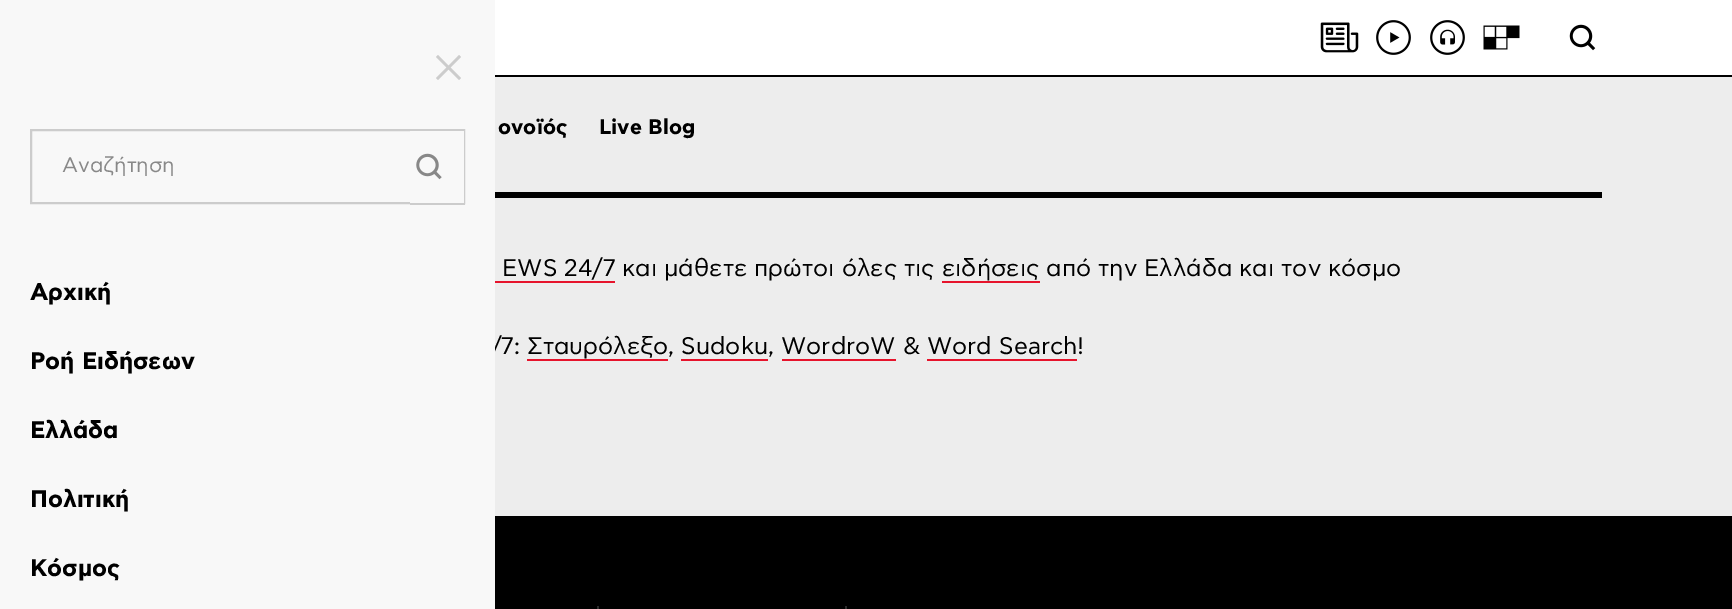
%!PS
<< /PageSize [1732 609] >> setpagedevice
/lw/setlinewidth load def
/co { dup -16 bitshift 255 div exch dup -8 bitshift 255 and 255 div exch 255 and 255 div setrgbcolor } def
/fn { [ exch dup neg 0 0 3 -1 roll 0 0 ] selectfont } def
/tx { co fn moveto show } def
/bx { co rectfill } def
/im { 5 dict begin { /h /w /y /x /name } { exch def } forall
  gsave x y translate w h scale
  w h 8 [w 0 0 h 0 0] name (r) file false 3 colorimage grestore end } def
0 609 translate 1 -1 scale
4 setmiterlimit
0 0 1732 609 16#EDEDED bx
495 0 1237 75 16#FFFFFF bx
495 75 1237 2 16#000000 bx
(media/1.raw) 1320 22 39 31 im
(media/2.raw) 1376 20 35 35 im
(media/3.raw) 1430 20 35 35 im
(media/4.raw) 1483 25 37 25 im
(media/5.raw) 1569 24 27 27 im
495 192 1107 6 16#000000 bx
495 281 120 2 16#E6142C bx
942 281 98 2 16#E6142C bx
527 359 141 2 16#E6142C bx
681 359 87 2 16#E6142C bx
782 359 114 2 16#E6142C bx
927 359 150 2 16#E6142C bx
495 516 1237 93 16#000000 bx
597 606 2 3 16#2C2C2C bx
845 606 2 3 16#2C2C2C bx
(ονοϊός) 498 134 /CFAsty-Bold 21 16#000000 tx
(Live Blog) 599 134 /CFAsty-Bold 21 16#000000 tx
(EWS 24/7 και μάθετε πρώτοι όλες τις ειδήσεις από την Ελλάδα και τον κόσμο) 502 276 /CFAsty-Regular 24 16#000000 tx
(/7: Σταυρόλεξο, Sudoku, WordroW & Word Search!) 491 354 /CFAsty-Regular 24 16#000000 tx
0 0 495 609 16#F8F8F8 bx
(Κόσμος) 30 576 /CFAsty-Bold 24 16#000000 tx
(Πολιτική) 30 507 /CFAsty-Bold 24 16#000000 tx
(Ελλάδα) 30 438 /CFAsty-Bold 24 16#000000 tx
(Ροή Ειδήσεων) 30 369 /CFAsty-Bold 24 16#000000 tx
(Αρχική) 30 300 /CFAsty-Bold 24 16#000000 tx
16#CCCCCC co
2 lw
31 130 433 73 rectstroke
410 131 54 72 16#F8F8F8 bx
(media/7.raw) 416 153 26 27 im
410 204 55 1 16#CCCCCC bx
(Αναζήτηση) 62 172 /CFAsty-Regular 21 16#888888 tx
(media/6.raw) 436 55 25 25 im
showpage
